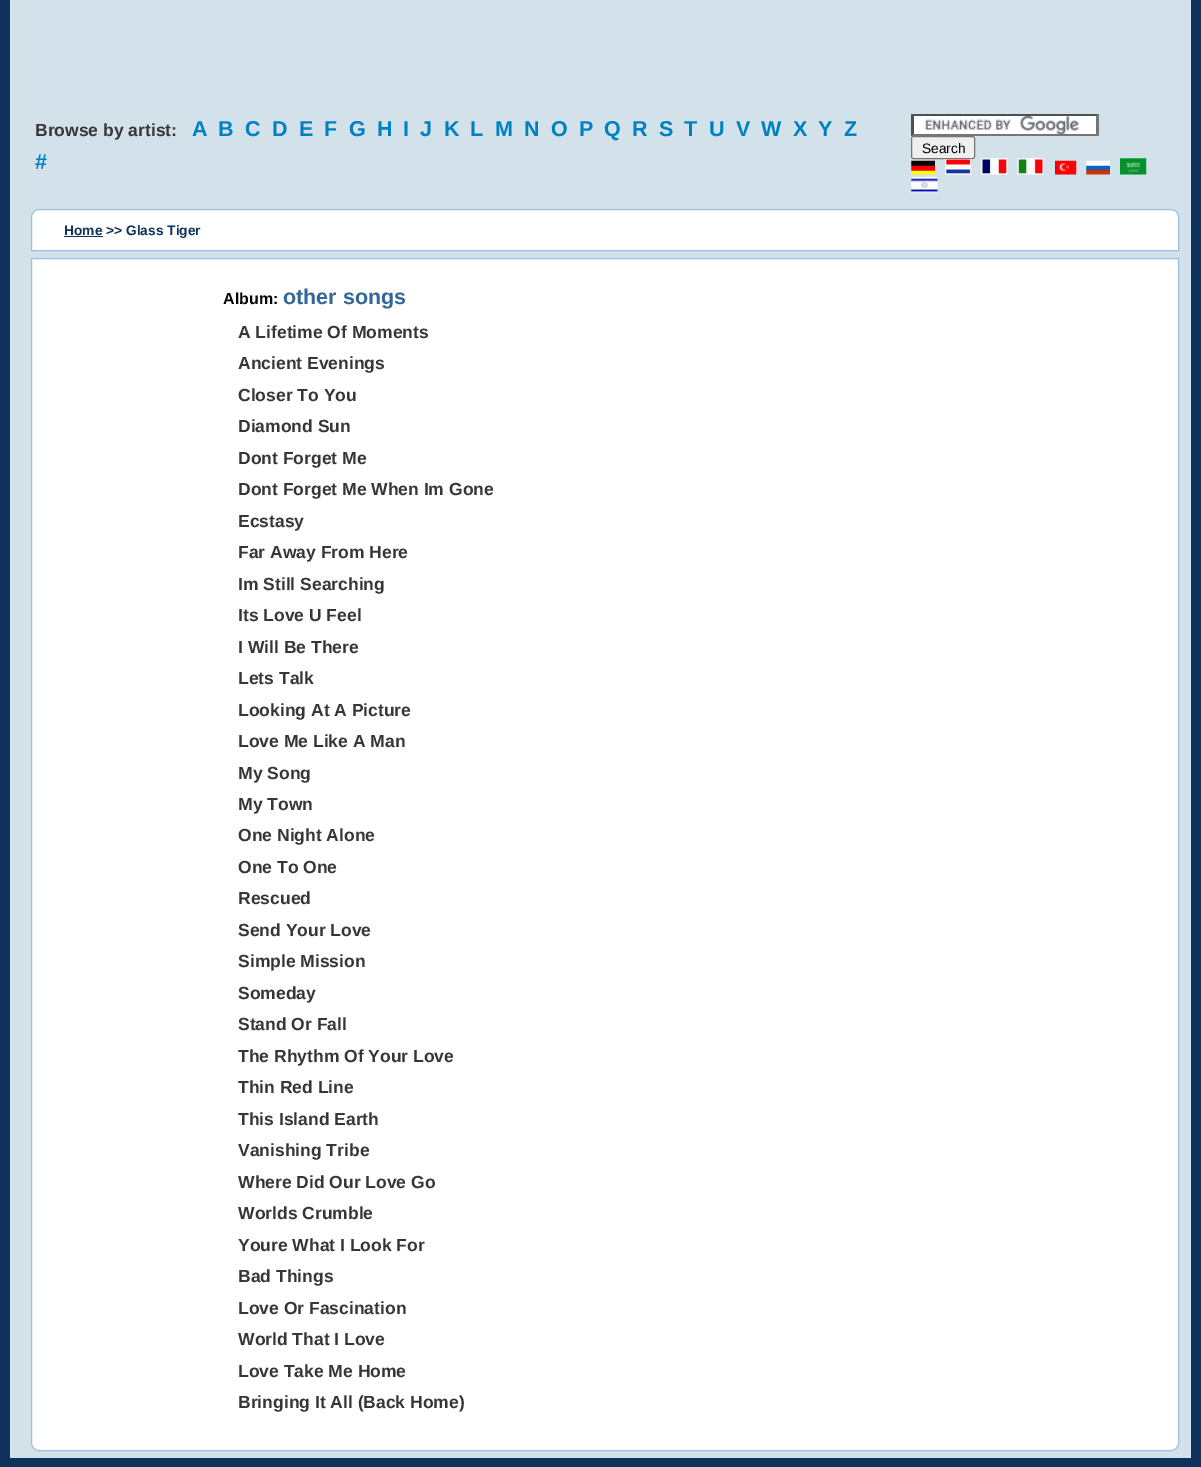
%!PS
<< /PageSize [1201 1467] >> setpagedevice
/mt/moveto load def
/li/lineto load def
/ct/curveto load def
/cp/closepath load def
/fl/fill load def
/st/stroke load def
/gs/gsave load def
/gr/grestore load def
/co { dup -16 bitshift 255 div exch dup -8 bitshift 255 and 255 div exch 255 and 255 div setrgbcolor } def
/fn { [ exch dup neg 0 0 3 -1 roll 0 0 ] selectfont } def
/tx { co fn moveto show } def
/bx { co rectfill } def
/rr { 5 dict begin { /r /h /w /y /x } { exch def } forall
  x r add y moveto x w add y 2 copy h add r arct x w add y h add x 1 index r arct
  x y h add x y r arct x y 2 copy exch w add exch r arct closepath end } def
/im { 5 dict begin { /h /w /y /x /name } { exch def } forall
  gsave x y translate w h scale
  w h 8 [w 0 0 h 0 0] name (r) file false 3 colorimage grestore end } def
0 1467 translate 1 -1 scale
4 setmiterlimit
0 0 1201 1467 16#0E3259 bx
10 0 1181 1458 16#D3E2EA bx
911 114 188 22 16#FFFFFF bx
(media/1.raw) 925 116 154 18 im
16#4F4F4F co
911 114 mt 1099 114 li 1096 116 li 914 116 li cp fl
16#767676 co
1099 114 mt 1099 136 li 1096 134 li 1096 116 li cp fl
1099 136 mt 911 136 li 914 134 li 1096 134 li cp fl
16#4F4F4F co
911 136 mt 911 114 li 914 116 li 914 134 li cp fl
16#EFEFEF co
911.5 136.5 63 22 2 rr gs fl gr
16#767676 co
st
(media/2.raw) 911 160 24 15 im
(media/3.raw) 945 159 27 16 im
(media/4.raw) 981 158 27 17 im
(media/5.raw) 1017 158 27 17 im
(media/6.raw) 1055 160 22 15 im
(media/7.raw) 1086 160 24 15 im
(media/8.raw) 1120 158 27 17 im
(media/9.raw) 911 177 27 17 im
16#FFFFFF co
39 209.5 mt 1171 209.5 li 1175 209.5 1178.5 213 1178.5 217 ct 1178.5 250.5 li 31.5 250.5 li 31.5 217 li 31.5 213 35 209.5 39 209.5 ct cp gs fl gr
16#9CBEE6 co
st
64 236 39 1 16#0E3259 bx
16#FFFFFF co
31.5 258.5 mt 1178.5 258.5 li 1178.5 1443 li 1178.5 1447 1175 1450.5 1171 1450.5 ct 39 1450.5 li 35 1450.5 31.5 1447 31.5 1443 ct cp gs fl gr
16#9CBEE6 co
st
(Browse by artist:) 35 136 /LiberationSans-Bold 17.5 16#363636 tx
/LiberationSans-Bold 21.5 fn
16#0080C1 co
192 136 mt 6 0 (A) ashow
218 136 mt 6 0 (B) ashow
245 136 mt 6 0 (C) ashow
272 136 mt 6 0 (D) ashow
299 136 mt 6 0 (E) ashow
324 136 mt 6 0 (F) ashow
349 136 mt 6 0 (G) ashow
377 136 mt 6 0 (H) ashow
403 136 mt 6 0 (I) ashow
420 136 mt 6 0 (J) ashow
444 136 mt 6 0 (K) ashow
470 136 mt 6 0 (L) ashow
495 136 mt 6 0 (M) ashow
524 136 mt 6 0 (N) ashow
551 136 mt 6 0 (O) ashow
579 136 mt 6 0 (P) ashow
604 136 mt 6 0 (Q) ashow
632 136 mt 6 0 (R) ashow
659 136 mt 6 0 (S) ashow
684 136 mt 6 0 (T) ashow
709 136 mt 6 0 (U) ashow
736 136 mt 6 0 (V) ashow
761 136 mt 6 0 (W) ashow
793 136 mt 6 0 (X) ashow
818 136 mt 6 0 (Y) ashow
844 136 mt 6 0 (Z) ashow
35 169 mt 6 0 (#) ashow
(Search) 922 153 /LiberationSans-Regular 13.75 16#000000 tx
(Home >> Glass Tiger) 64 235 /LiberationSans-Bold 13.75 16#0E3259 tx
(Album:) 223 304 /LiberationSans-Bold 16 16#000000 tx
(other songs) 283 304 /LiberationSans-Bold 21.5 16#336699 tx
(A Lifetime Of Moments) 238 338 /LiberationSans-Bold 17.5 16#363636 tx
(Ancient Evenings) 238 369 /LiberationSans-Bold 17.5 16#363636 tx
(Closer To You) 238 401 /LiberationSans-Bold 17.5 16#363636 tx
(Diamond Sun) 238 432 /LiberationSans-Bold 17.5 16#363636 tx
(Dont Forget Me) 238 464 /LiberationSans-Bold 17.5 16#363636 tx
(Dont Forget Me When Im Gone) 238 495 /LiberationSans-Bold 17.5 16#363636 tx
(Ecstasy) 238 527 /LiberationSans-Bold 17.5 16#363636 tx
(Far Away From Here) 238 558 /LiberationSans-Bold 17.5 16#363636 tx
(Im Still Searching) 238 590 /LiberationSans-Bold 17.5 16#363636 tx
(Its Love U Feel) 238 621 /LiberationSans-Bold 17.5 16#363636 tx
(I Will Be There) 238 653 /LiberationSans-Bold 17.5 16#363636 tx
(Lets Talk) 238 684 /LiberationSans-Bold 17.5 16#363636 tx
(Looking At A Picture) 238 716 /LiberationSans-Bold 17.5 16#363636 tx
(Love Me Like A Man) 238 747 /LiberationSans-Bold 17.5 16#363636 tx
(My Song) 238 779 /LiberationSans-Bold 17.5 16#363636 tx
(My Town) 238 810 /LiberationSans-Bold 17.5 16#363636 tx
(One Night Alone) 238 841 /LiberationSans-Bold 17.5 16#363636 tx
(One To One) 238 873 /LiberationSans-Bold 17.5 16#363636 tx
(Rescued) 238 904 /LiberationSans-Bold 17.5 16#363636 tx
(Send Your Love) 238 936 /LiberationSans-Bold 17.5 16#363636 tx
(Simple Mission) 238 967 /LiberationSans-Bold 17.5 16#363636 tx
(Someday) 238 999 /LiberationSans-Bold 17.5 16#363636 tx
(Stand Or Fall) 238 1030 /LiberationSans-Bold 17.5 16#363636 tx
(The Rhythm Of Your Love) 238 1062 /LiberationSans-Bold 17.5 16#363636 tx
(Thin Red Line) 238 1093 /LiberationSans-Bold 17.5 16#363636 tx
(This Island Earth) 238 1125 /LiberationSans-Bold 17.5 16#363636 tx
(Vanishing Tribe) 238 1156 /LiberationSans-Bold 17.5 16#363636 tx
(Where Did Our Love Go) 238 1188 /LiberationSans-Bold 17.5 16#363636 tx
(Worlds Crumble) 238 1219 /LiberationSans-Bold 17.5 16#363636 tx
(Youre What I Look For) 238 1251 /LiberationSans-Bold 17.5 16#363636 tx
(Bad Things) 238 1282 /LiberationSans-Bold 17.5 16#363636 tx
(Love Or Fascination) 238 1314 /LiberationSans-Bold 17.5 16#363636 tx
(World That I Love) 238 1345 /LiberationSans-Bold 17.5 16#363636 tx
(Love Take Me Home) 238 1377 /LiberationSans-Bold 17.5 16#363636 tx
(Bringing It All \(Back Home\)) 238 1408 /LiberationSans-Bold 17.5 16#363636 tx
showpage
